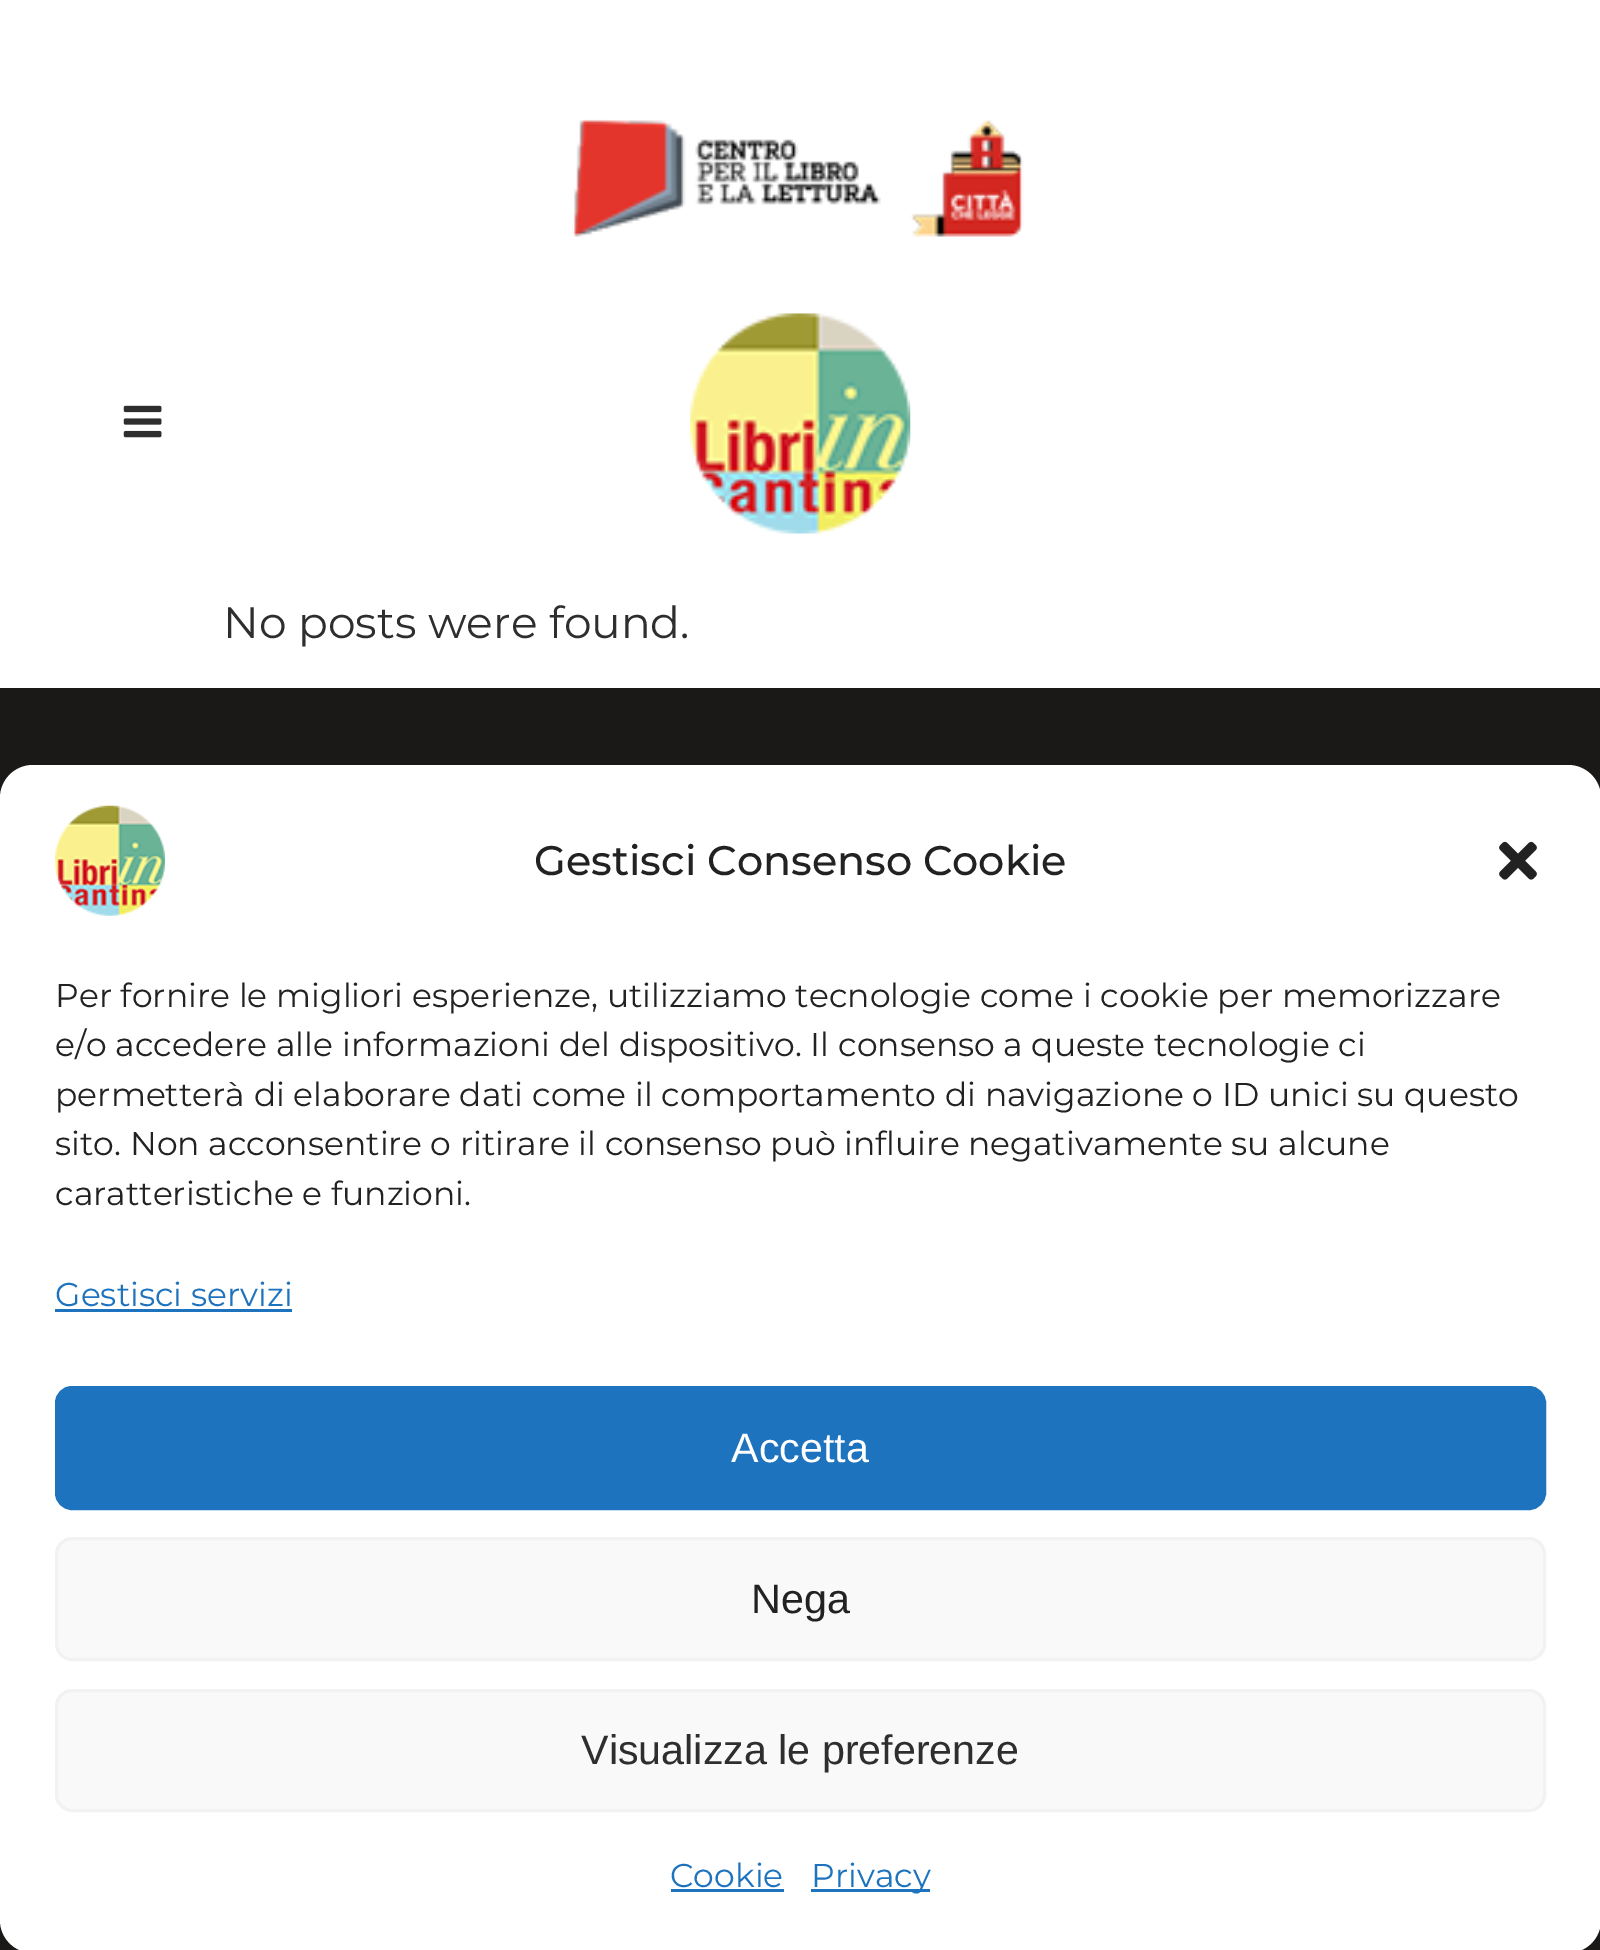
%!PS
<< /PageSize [1600 1950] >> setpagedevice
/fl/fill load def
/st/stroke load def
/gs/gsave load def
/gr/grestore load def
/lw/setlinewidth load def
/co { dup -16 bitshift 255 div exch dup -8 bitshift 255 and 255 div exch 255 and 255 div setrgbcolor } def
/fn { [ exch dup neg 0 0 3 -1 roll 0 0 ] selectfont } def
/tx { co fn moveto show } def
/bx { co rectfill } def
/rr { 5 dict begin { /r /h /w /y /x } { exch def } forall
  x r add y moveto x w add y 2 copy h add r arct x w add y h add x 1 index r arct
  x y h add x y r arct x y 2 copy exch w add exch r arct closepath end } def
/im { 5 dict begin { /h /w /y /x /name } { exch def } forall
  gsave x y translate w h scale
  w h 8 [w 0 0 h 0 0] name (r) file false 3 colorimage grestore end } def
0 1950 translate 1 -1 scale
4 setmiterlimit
0 0 1600 1950 16#FFFFFF bx
(media/1.raw) 572 119 452 118 im
(media/2.raw) 123 405 39 33 im
(media/3.raw) 690 313 221 221 im
0 688 1600 1262 16#1A1917 bx
16#FFFFFF co
0 765 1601 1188 33 rr fl
(media/4.raw) 55 805 110 111 im
(media/5.raw) 1499 841 38 39 im
55 1309 237 3 16#1E73BE bx
56.5 1387.5 1488 121 15.5 rr gs fl gr
3 lw
st
16#F9F9F9 co
56.5 1538.5 1488 121 15.5 rr gs fl gr
16#F2F2F2 co
st
16#F9F9F9 co
56.5 1690.5 1488 120 15.5 rr gs fl gr
16#F2F2F2 co
st
671 1889 113 3 16#1E73BE bx
811 1889 119 3 16#1E73BE bx
(No posts were found.) 223 638 /Montserrat-Regular 44 16#2E2E2E tx
(Gestisci Consenso Cookie) 534 875 /Montserrat-Medium 41.25 16#222222 tx
(Per fornire le migliori esperienze, utilizziamo tecnologie come i cookie per memorizzare) 55 1007 /Montserrat-Regular 33 16#222222 tx
(e/o accedere alle informazioni del dispositivo. Il consenso a queste tecnologie ci) 55 1056 /Montserrat-Regular 33 16#222222 tx
(permetterà di elaborare dati come il comportamento di navigazione o ID unici su questo) 55 1106 /Montserrat-Regular 33 16#222222 tx
(sito. Non acconsentire o ritirare il consenso può influire negativamente su alcune) 55 1155 /Montserrat-Regular 33 16#222222 tx
(caratteristiche e funzioni.) 55 1205 /Montserrat-Regular 33 16#222222 tx
(Gestisci servizi) 55 1306 /Montserrat-Regular 33 16#1E73BE tx
(Accetta) 731 1462 /LiberationSans-Regular 41.25 16#FFFFFF tx
(Nega) 751 1613 /LiberationSans-Regular 41.25 16#222222 tx
(Visualizza le preferenze) 581 1764 /LiberationSans-Regular 41.25 16#2E2E2E tx
(Cookie) 670 1887 /Montserrat-Regular 33 16#1E73BE tx
(Privacy) 811 1887 /Montserrat-Regular 33 16#1E73BE tx
showpage
